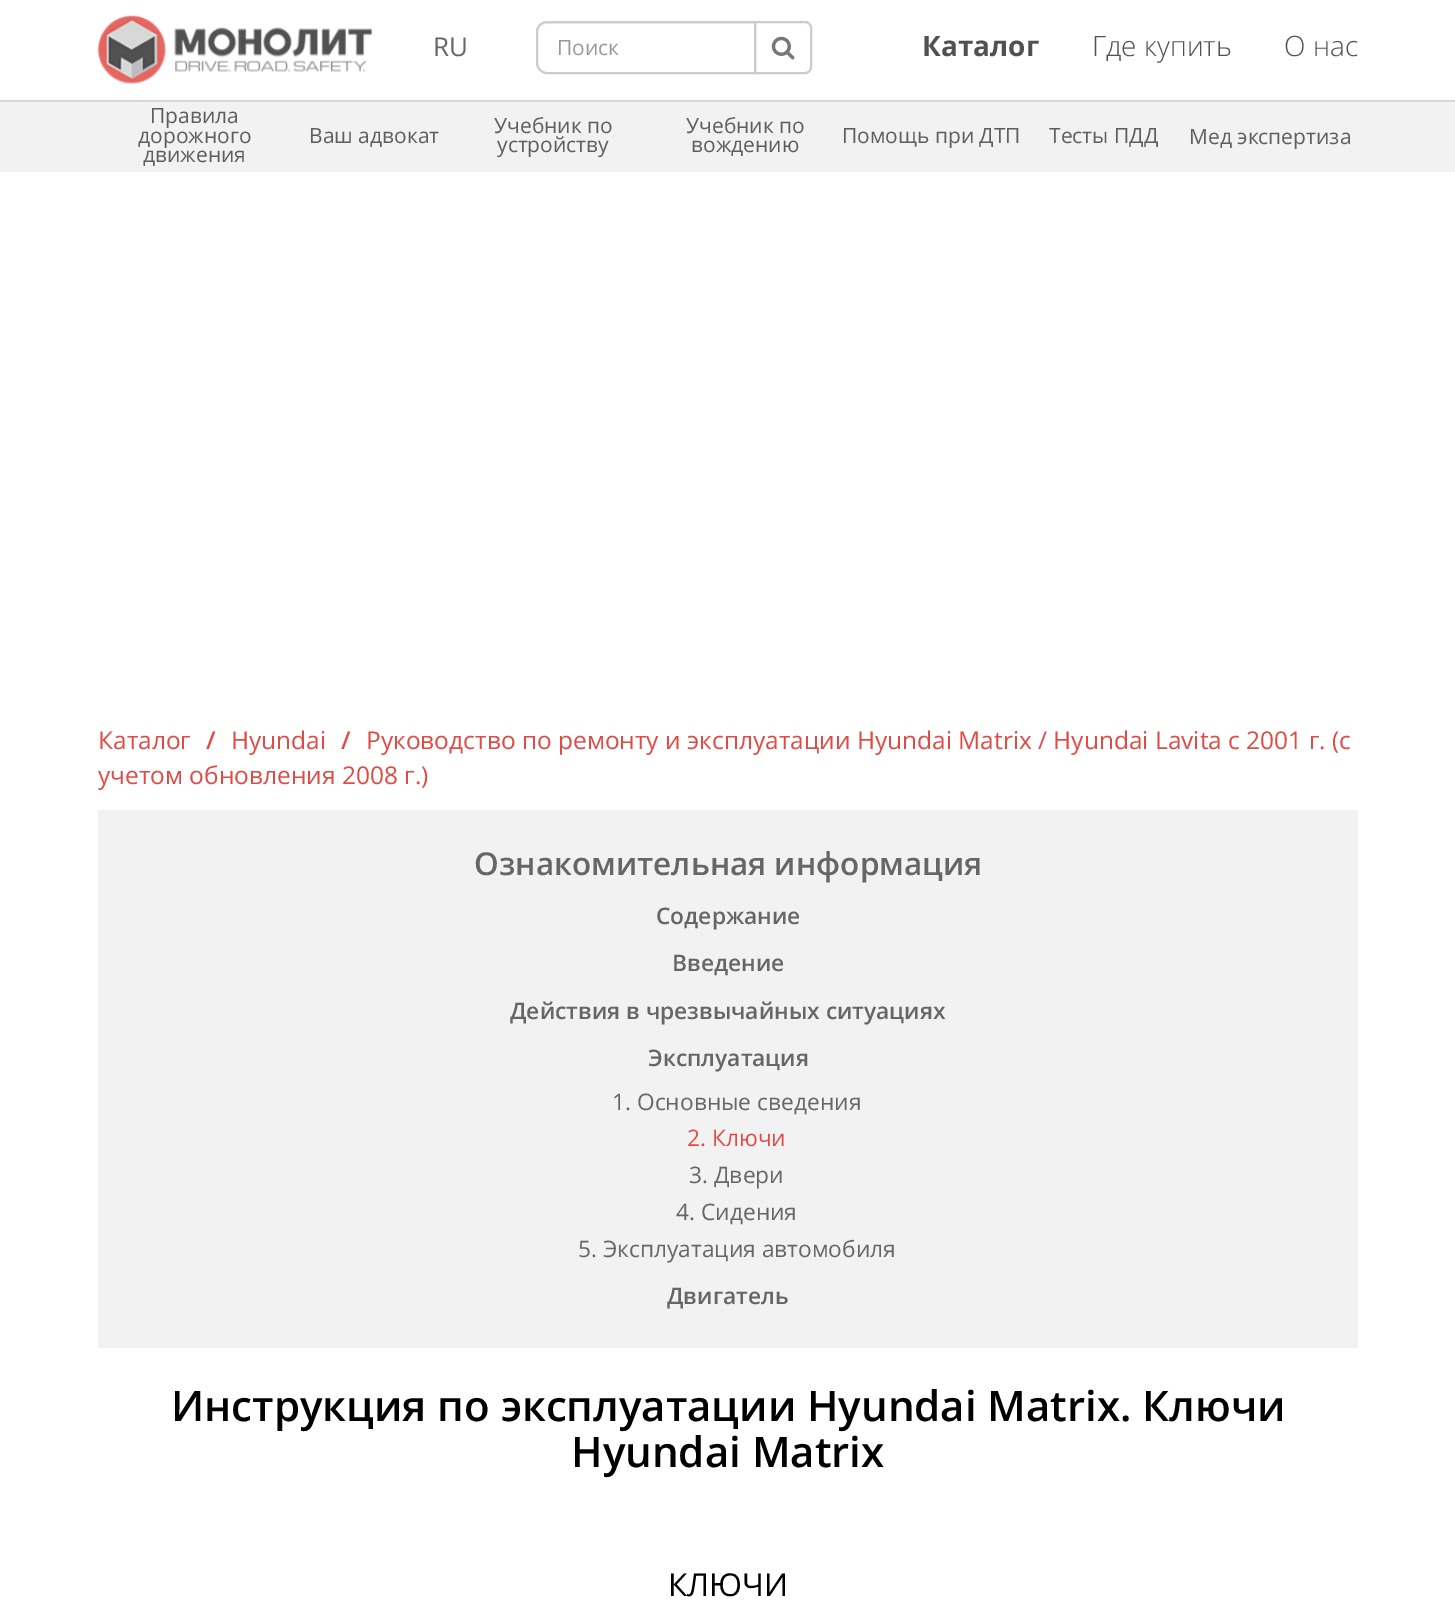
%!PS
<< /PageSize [1455 1621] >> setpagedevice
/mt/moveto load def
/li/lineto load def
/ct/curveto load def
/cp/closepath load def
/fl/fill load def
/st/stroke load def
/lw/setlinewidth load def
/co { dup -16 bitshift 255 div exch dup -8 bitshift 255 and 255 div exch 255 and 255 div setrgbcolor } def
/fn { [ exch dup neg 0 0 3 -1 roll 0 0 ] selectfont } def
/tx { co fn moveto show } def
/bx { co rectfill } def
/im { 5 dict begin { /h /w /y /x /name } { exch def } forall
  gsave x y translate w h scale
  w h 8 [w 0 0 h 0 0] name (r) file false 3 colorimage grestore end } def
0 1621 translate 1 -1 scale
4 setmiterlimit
0 0 1455 1621 16#FFFFFF bx
0 100 1455 2 16#D8D8D8 bx
(media/1.raw) 98 15 274 69 im
16#ECECEC co
546 24 mt 754 24 li 754 23 li 546 23 li 541 23 537 27 537 32 ct 537 33 li 537 28 541 24 546 24 ct cp fl
16#CCCCCC co
2 lw
547 22 mt 755 22 li 755 73 li 547 73 li 541.5 73 537 68.5 537 63 ct 537 32 li 537 26.5 541.5 22 547 22 ct cp st
755 22 mt 805 22 li 808.5 22 811 24.5 811 28 ct 811 67 li 811 70.5 808.5 73 805 73 ct 755 73 li cp st
(media/2.raw) 771 36 24 24 im
0 102 1455 70 16#F2F2F2 bx
98 810 1260 538 16#F2F2F2 bx
(RU) 433 56 /OpenSans-Regular 26 16#666666 tx
(Поиск) 557 55 /OpenSans-Regular 21 16#999999 tx
(Каталог) 922 56 /OpenSans-Bold 28 16#515151 tx
(Где купить) 1092 56 /OpenSans-Light 28 16#515151 tx
(О нас) 1284 56 /OpenSans-Light 28 16#515151 tx
(Правила) 150 123 /OpenSans-Regular 21 16#5E5E5E tx
(дорожного) 138 143 /OpenSans-Regular 21 16#5E5E5E tx
(движения) 143 162 /OpenSans-Regular 21 16#5E5E5E tx
(Ваш адвокат) 309 143 /OpenSans-Regular 21 16#5E5E5E tx
(Учебник по) 494 133 /OpenSans-Regular 21 16#5E5E5E tx
(устройству) 497 152 /OpenSans-Regular 21 16#5E5E5E tx
(Учебник по) 686 133 /OpenSans-Regular 21 16#5E5E5E tx
(вождению) 691 152 /OpenSans-Regular 21 16#5E5E5E tx
(Помощь при ДТП) 842 143 /OpenSans-Regular 21 16#5E5E5E tx
(Тесты ПДД) 1049 143 /OpenSans-Regular 21 16#5E5E5E tx
(Мед экспертиза) 1189 144 /OpenSans-Regular 21 16#5E5E5E tx
(Каталог) 98 749 /OpenSans-Regular 24.5 16#E04B45 tx
(/) 206 749 /OpenSans-SemiBold 24.5 16#E04B45 tx
(Hyundai) 231 749 /OpenSans-Regular 24.5 16#E04B45 tx
(/) 341 749 /OpenSans-SemiBold 24.5 16#E04B45 tx
(Руководство по ремонту и эксплуатации Hyundai Matrix / Hyundai Lavita c 2001 г. \(с) 366 749 /OpenSans-Regular 24.5 16#E04B45 tx
(учетом обновления 2008 г.\)) 98 784 /OpenSans-Regular 24.5 16#E04B45 tx
(Ознакомительная информация) 474 875 /OpenSans-SemiBold 31.5 16#666666 tx
(Содержание) 656 924 /OpenSans-SemiBold 22.75 16#666666 tx
(Введение) 672 971 /OpenSans-SemiBold 22.75 16#666666 tx
(Действия в чрезвычайных ситуациях) 510 1019 /OpenSans-SemiBold 22.75 16#666666 tx
(Эксплуатация) 648 1066 /OpenSans-SemiBold 22.75 16#666666 tx
(1. Основные сведения) 612 1110 /OpenSans-Regular 22.75 16#666666 tx
(2. Ключи) 687 1146 /OpenSans-Regular 22.75 16#E04B45 tx
(3. Двери) 689 1183 /OpenSans-Regular 22.75 16#666666 tx
(4. Сидения) 676 1220 /OpenSans-Regular 22.75 16#666666 tx
(5. Эксплуатация автомобиля) 578 1257 /OpenSans-Regular 22.75 16#666666 tx
(Двигатель) 667 1304 /OpenSans-SemiBold 22.75 16#666666 tx
(Инструкция по эксплуатации Hyundai Matrix. Ключи) 171 1421 /OpenSans-SemiBold 42 16#000000 tx
(Hyundai Matrix) 571 1467 /OpenSans-SemiBold 42 16#000000 tx
(КЛЮЧИ) 668 1596 /OpenSans-Regular 31.5 16#000000 tx
showpage
